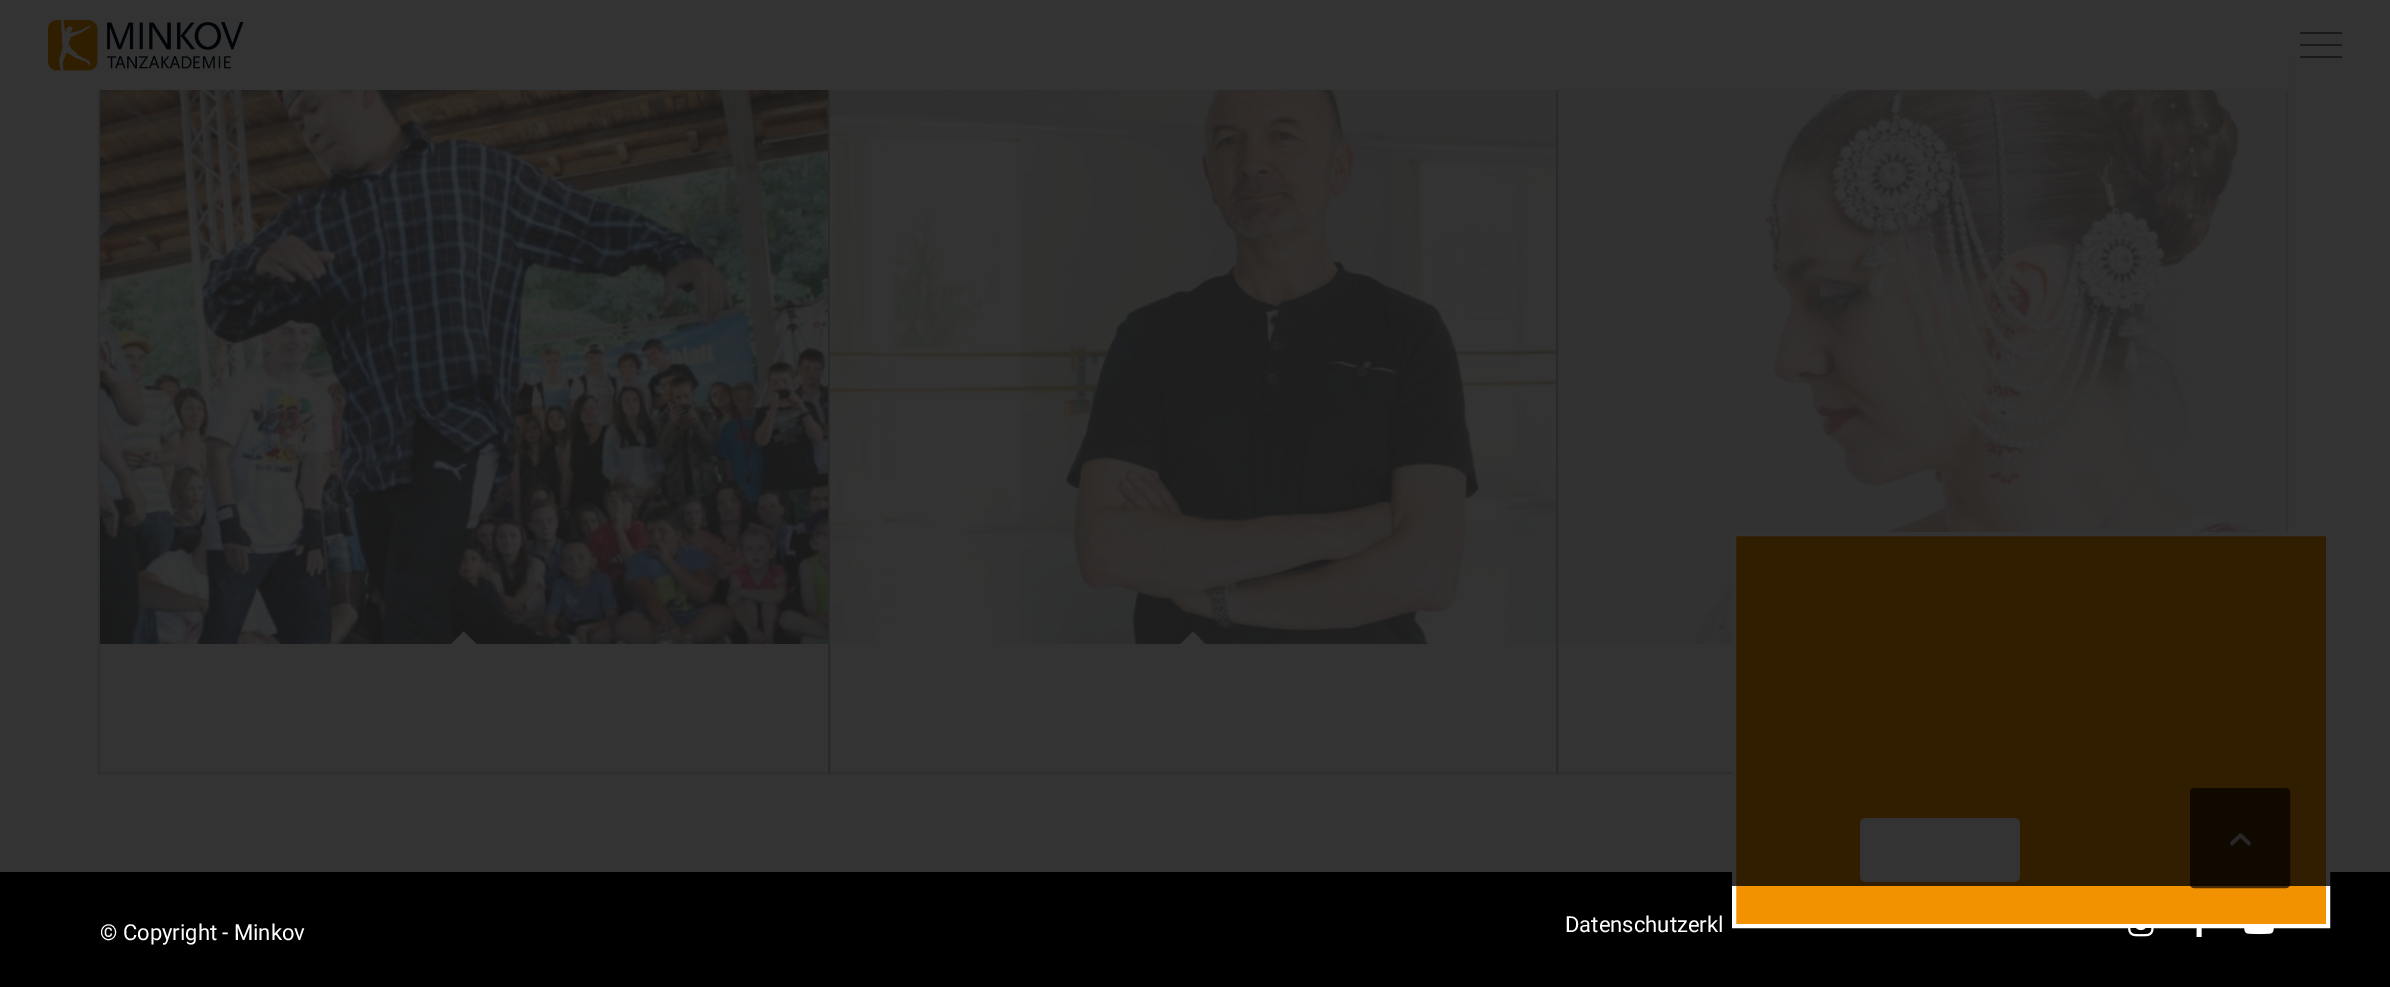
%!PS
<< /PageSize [2390 987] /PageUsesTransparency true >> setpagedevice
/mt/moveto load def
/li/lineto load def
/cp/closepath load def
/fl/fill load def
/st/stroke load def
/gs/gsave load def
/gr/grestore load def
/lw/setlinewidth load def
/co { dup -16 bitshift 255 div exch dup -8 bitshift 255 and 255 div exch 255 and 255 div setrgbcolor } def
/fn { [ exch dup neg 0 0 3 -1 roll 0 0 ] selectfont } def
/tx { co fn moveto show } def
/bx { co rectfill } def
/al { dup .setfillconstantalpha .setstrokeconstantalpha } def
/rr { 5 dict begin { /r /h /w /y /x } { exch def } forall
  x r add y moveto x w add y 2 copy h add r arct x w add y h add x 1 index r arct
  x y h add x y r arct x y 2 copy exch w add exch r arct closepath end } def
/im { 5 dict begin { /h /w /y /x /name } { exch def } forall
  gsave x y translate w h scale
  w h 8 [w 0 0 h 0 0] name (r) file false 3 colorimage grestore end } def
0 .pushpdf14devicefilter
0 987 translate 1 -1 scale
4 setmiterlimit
0 0 2390 987 16#FFFFFF bx
0.1 al
16#000000 co
2 lw
99 55 730 718 rectstroke
829 55 728 718 rectstroke
1557 55 730 718 rectstroke
1 al
(media/5.raw) 1559 90 727 554 im
0 872 2390 115 16#000000 bx
16#F39200 co
1734 534 mt 2328 534 li 2328 926 li 1734 926 li cp gs fl gr
16#FFFFFF co
4 lw
st
1860 818 160 64 6 rr fl
16#492C00 co
2191 789 98 98 3 rr gs fl gr
2 lw
st
(media/1.raw) 2230 833 21 13 im
98 54 2190 36 16#FFFFFF bx
(media/2.raw) 48 20 196 51 im
16#808080 co
2300 44 42 2 1 rr fl
2300 32 42 2 1 rr fl
2300 56 42 2 1 rr fl
(media/3.raw) 100 90 728 554 im
16#FFFFFF co
463.5 631.5 mt 478 645.5 li 463.5 660 li 449.5 645.5 li cp fl
(media/4.raw) 830 90 726 554 im
1193 631.5 mt 1207 646 li 1193 660 li 1178.5 646 li cp fl
0.8 al
0 0 2390 886 16#000000 bx
1 al
(media/6.raw) 2128 928 26 9 im
(media/7.raw) 2196 928 6 9 im
(media/8.raw) 2244 928 30 7 im
(© Copyright - Minkov) 100 940 /Heebo-Regular 22 16#FFFFFF tx
(Datenschutzerkl) 1565 932 /Heebo-Regular 22 16#FFFFFF tx
.poppdf14devicefilter showpage
